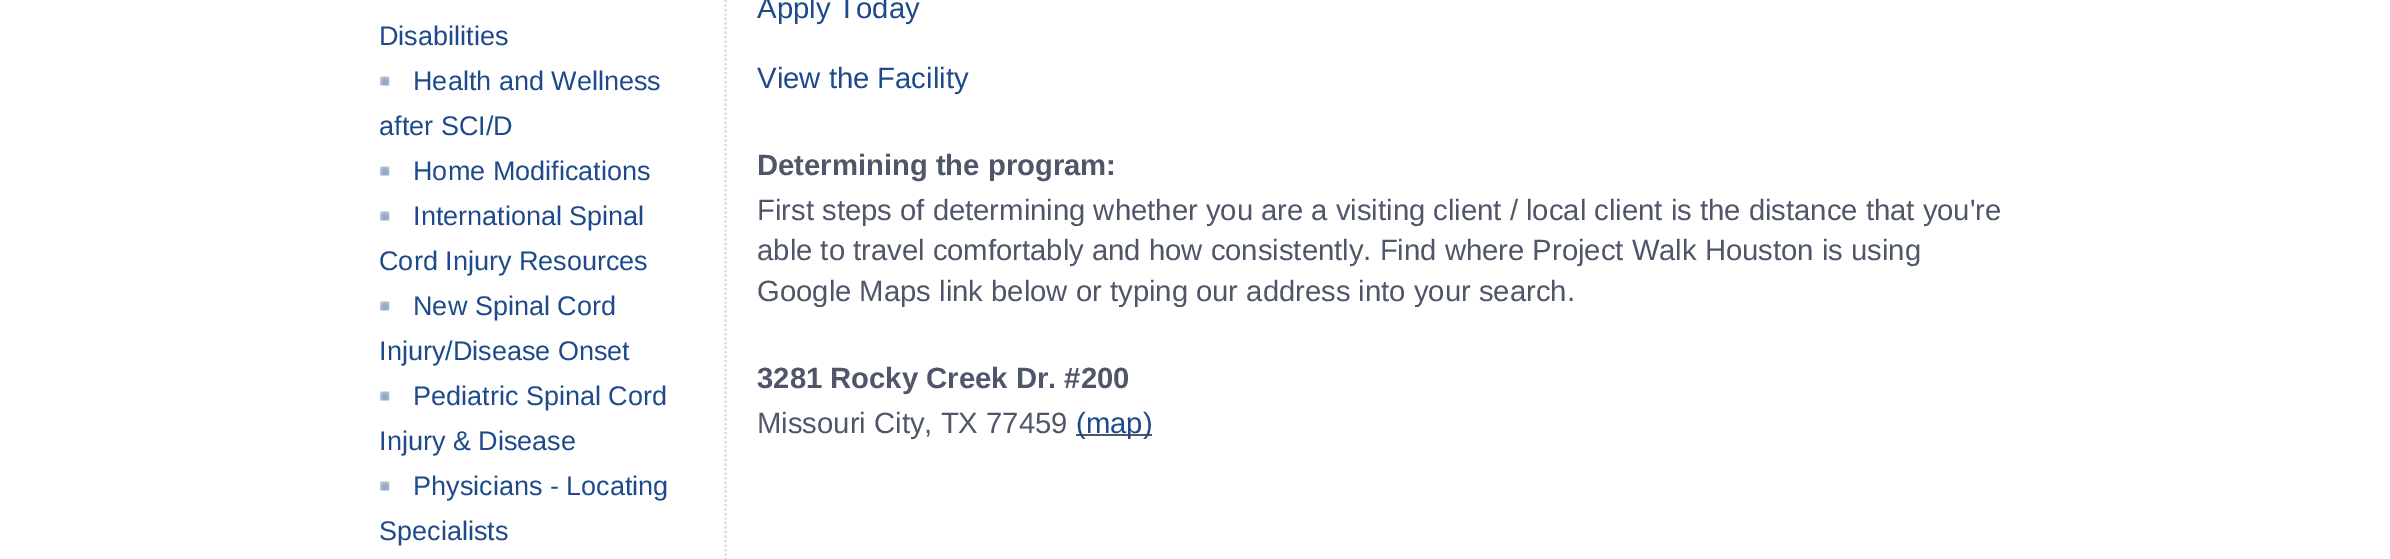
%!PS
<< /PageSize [2390 559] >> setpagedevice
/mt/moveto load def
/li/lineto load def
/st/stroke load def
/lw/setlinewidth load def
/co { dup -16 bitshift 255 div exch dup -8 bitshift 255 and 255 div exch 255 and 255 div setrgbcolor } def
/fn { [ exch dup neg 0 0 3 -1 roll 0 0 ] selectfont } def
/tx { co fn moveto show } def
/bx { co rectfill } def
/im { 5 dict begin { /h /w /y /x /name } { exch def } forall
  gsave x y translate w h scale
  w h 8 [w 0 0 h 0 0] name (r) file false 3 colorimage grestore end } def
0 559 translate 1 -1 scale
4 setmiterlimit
0 0 2390 559 16#FFFFFF bx
16#D7DBDE co
2.2 lw
[2.25 2.25] 0 setdash
725.5 -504 mt 725.5 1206 li st
(media/1.raw) 380 76 10 10 im
(media/1.raw) 380 166 10 10 im
(media/1.raw) 380 211 10 10 im
(media/1.raw) 380 301 10 10 im
(media/1.raw) 380 391 10 10 im
(media/1.raw) 380 481 10 10 im
1076 434 76 2 16#505669 bx
(Disabilities) 379 45 /LiberationSans-Regular 27 16#1E4A8B tx
(Health and Wellness) 413 90 /LiberationSans-Regular 27 16#1E4A8B tx
(after SCI/D) 379 135 /LiberationSans-Regular 27 16#1E4A8B tx
(Home Modifications) 413 180 /LiberationSans-Regular 27 16#1E4A8B tx
(International Spinal) 413 225 /LiberationSans-Regular 27 16#1E4A8B tx
(Cord Injury Resources) 379 270 /LiberationSans-Regular 27 16#1E4A8B tx
(New Spinal Cord) 413 315 /LiberationSans-Regular 27 16#1E4A8B tx
(Injury/Disease Onset) 379 360 /LiberationSans-Regular 27 16#1E4A8B tx
(Pediatric Spinal Cord) 413 405 /LiberationSans-Regular 27 16#1E4A8B tx
(Injury & Disease) 379 450 /LiberationSans-Regular 27 16#1E4A8B tx
(Physicians - Locating) 413 495 /LiberationSans-Regular 27 16#1E4A8B tx
(Specialists) 379 540 /LiberationSans-Regular 27 16#1E4A8B tx
(Apply Today) 757 18 /LiberationSans-Regular 29.25 16#1E4A8B tx
(View the Facility) 757 88 /LiberationSans-Regular 29.25 16#1E4A8B tx
(Determining the program:) 757 175 /LiberationSans-Bold 29.25 16#505669 tx
(First steps of determining whether you are a visiting client / local client is the distance that you're) 757 220 /LiberationSans-Regular 29.25 16#505669 tx
(able to travel comfortably and how consistently. Find where Project Walk Houston is using) 757 260 /LiberationSans-Regular 29.25 16#505669 tx
(Google Maps link below or typing our address into your search.) 757 301 /LiberationSans-Regular 29.25 16#505669 tx
(3281 Rocky Creek Dr. #200) 757 388 /LiberationSans-Bold 29.25 16#505669 tx
(Missouri City, TX 77459) 757 433 /LiberationSans-Regular 29.25 16#505669 tx
(\(map\)) 1076 433 /LiberationSans-Regular 29.25 16#1E4A8B tx
showpage
